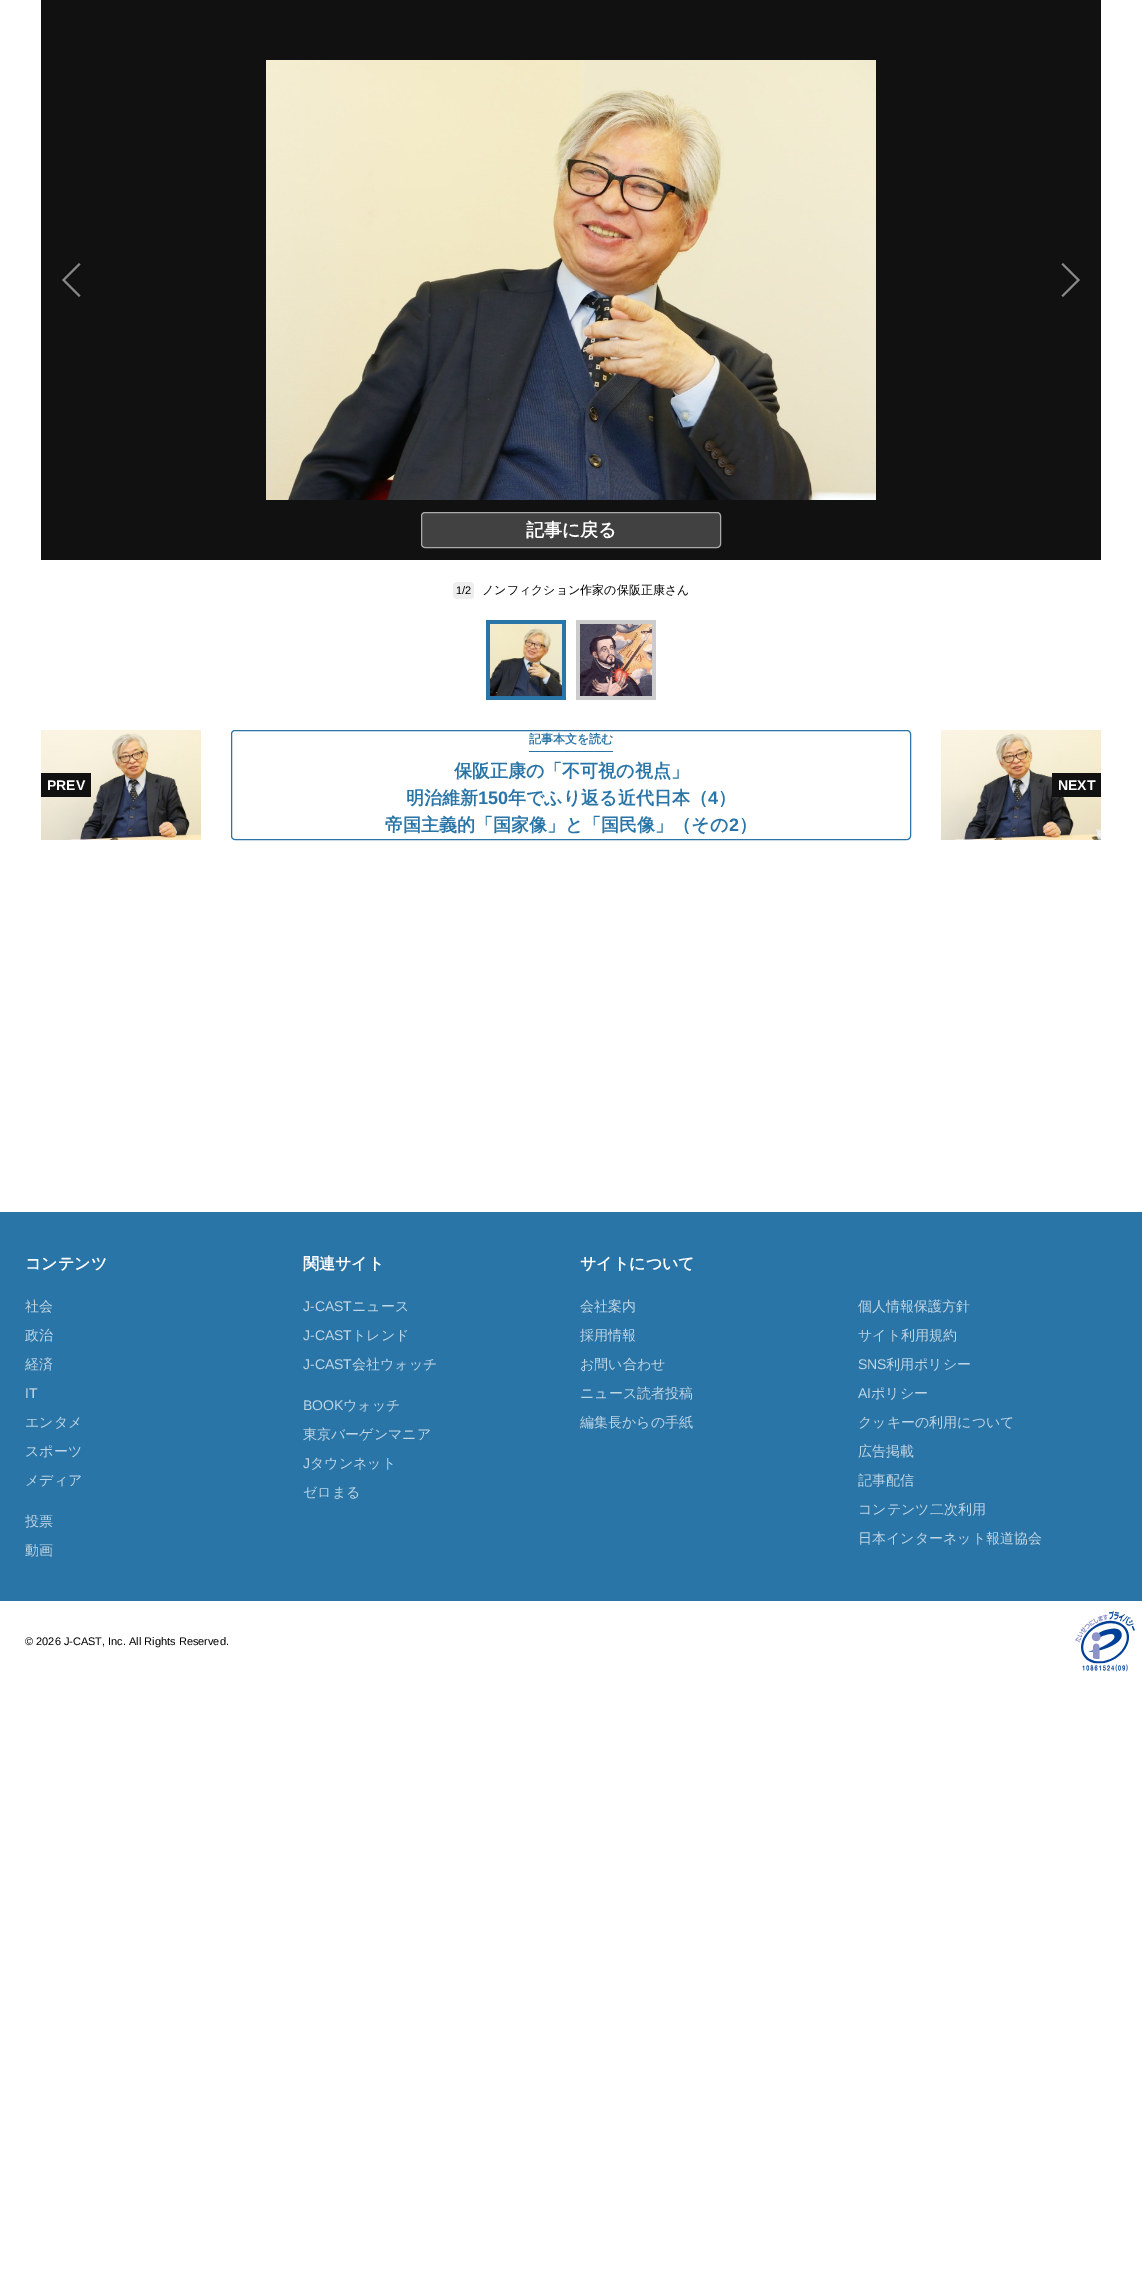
%!PS
<< /PageSize [1142 2280] >> setpagedevice
/mt/moveto load def
/li/lineto load def
/cp/closepath load def
/fl/fill load def
/st/stroke load def
/gs/gsave load def
/gr/grestore load def
/co { dup -16 bitshift 255 div exch dup -8 bitshift 255 and 255 div exch 255 and 255 div setrgbcolor } def
/fn { [ exch dup neg 0 0 3 -1 roll 0 0 ] selectfont } def
/tx { co fn moveto show } def
/bx { co rectfill } def
/rr { 5 dict begin { /r /h /w /y /x } { exch def } forall
  x r add y moveto x w add y 2 copy h add r arct x w add y h add x 1 index r arct
  x y h add x y r arct x y 2 copy exch w add exch r arct closepath end } def
/im { 5 dict begin { /h /w /y /x /name } { exch def } forall
  gsave x y translate w h scale
  w h 8 [w 0 0 h 0 0] name (r) file false 3 colorimage grestore end } def
0 2280 translate 1 -1 scale
4 setmiterlimit
0 0 1142 2280 16#FFFFFF bx
41 0 1060 560 16#111111 bx
16#888888 co
79 297 mt 62 280 li 65 280 li 80.5 295.5 li cp 62 280 mt 79 263 li 80.5 264.5 li 65 280 li cp fl
(media/1.raw) 266 60 610 440 im
1063 263 mt 1080 280 li 1077 280 li 1061.5 264.5 li cp 1080 280 mt 1063 297 li 1061.5 295.5 li 1077 280 li cp fl
16#414141 co
421.5 512.5 299 35 3.5 rr gs fl gr
16#AAAAAA co
st
16#EEEEEE co
453 582 21 17 4 rr fl
486 620 80 80 16#2A75A7 bx
(media/2.raw) 490 624 72 72 im
576 620 80 80 16#CCCCCC bx
(media/3.raw) 580 624 72 72 im
(media/4.raw) 41 730 160 110 im
41 773 50 24 16#111111 bx
16#2A75A7 co
231.5 730.5 679 109 3.5 rr st
529 751 84 1 16#2A75A7 bx
(media/5.raw) 941 730 160 110 im
1052 773 49 24 16#111111 bx
0 1212 1142 389 16#2A75A7 bx
(media/6.raw) 1075 1611 60 61 im
(記事に戻る) 526 536 /WenQuanYiZenHei-Bold 18 16#FFFFFF tx
(1/2) 456 594 /LiberationSans-Regular 11 16#000000 tx
(ノンフィクション作家の保阪正康さん) 482 594 /WenQuanYiZenHei-Medium 12 16#000000 tx
(PREV) 47 790 /LiberationSans-Bold 14 16#FFFFFF tx
(記事本文を読む) 529 743 /WenQuanYiZenHei-Bold 12 16#2A75A7 tx
(保阪正康の「不可視の視点」) 454 777 /WenQuanYiZenHei-Bold 18 16#2A75A7 tx
(明治維新) 406 804 /WenQuanYiZenHei-Bold 18 16#2A75A7 tx
(150) 478 804 /LiberationSans-Bold 18 16#2A75A7 tx
(年でふり返る近代日本（) 508 804 /WenQuanYiZenHei-Bold 18 16#2A75A7 tx
(4) 708 804 /LiberationSans-Bold 18 16#2A75A7 tx
(）) 718 804 /WenQuanYiZenHei-Bold 18 16#2A75A7 tx
(帝国主義的「国家像」と「国民像」（その) 385 831 /WenQuanYiZenHei-Bold 18 16#2A75A7 tx
(2) 729 831 /LiberationSans-Bold 18 16#2A75A7 tx
(）) 739 831 /WenQuanYiZenHei-Bold 18 16#2A75A7 tx
(NEXT) 1058 790 /LiberationSans-Bold 14 16#FFFFFF tx
(コンテンツ) 25 1269 /WenQuanYiZenHei-Bold 16 16#FFFFFF tx
(社会) 25 1311 /WenQuanYiZenHei-Medium 14 16#BFD6E5 tx
(政治) 25 1340 /WenQuanYiZenHei-Medium 14 16#BFD6E5 tx
(経済) 25 1369 /WenQuanYiZenHei-Medium 14 16#BFD6E5 tx
(IT) 25 1398 /LiberationSans-Regular 14 16#BFD6E5 tx
(エンタメ) 25 1427 /WenQuanYiZenHei-Medium 14 16#BFD6E5 tx
(スポーツ) 25 1456 /WenQuanYiZenHei-Medium 14 16#BFD6E5 tx
(メディア) 25 1485 /WenQuanYiZenHei-Medium 14 16#BFD6E5 tx
(投票) 25 1526 /WenQuanYiZenHei-Medium 14 16#BFD6E5 tx
(動画) 25 1555 /WenQuanYiZenHei-Medium 14 16#BFD6E5 tx
(関連サイト) 303 1269 /WenQuanYiZenHei-Bold 16 16#FFFFFF tx
(J-CAST) 303 1311 /LiberationSans-Regular 14 16#BFD6E5 tx
(ニュース) 352 1311 /WenQuanYiZenHei-Medium 14 16#BFD6E5 tx
(J-CAST) 303 1340 /LiberationSans-Regular 14 16#BFD6E5 tx
(トレンド) 352 1340 /WenQuanYiZenHei-Medium 14 16#BFD6E5 tx
(J-CAST) 303 1369 /LiberationSans-Regular 14 16#BFD6E5 tx
(会社ウォッチ) 352 1369 /WenQuanYiZenHei-Medium 14 16#BFD6E5 tx
(BOOK) 303 1410 /LiberationSans-Regular 14 16#BFD6E5 tx
(ウォッチ) 343 1410 /WenQuanYiZenHei-Medium 14 16#BFD6E5 tx
(東京バーゲンマニア) 303 1439 /WenQuanYiZenHei-Medium 14 16#BFD6E5 tx
(J) 303 1468 /LiberationSans-Regular 14 16#BFD6E5 tx
(タウンネット) 310 1468 /WenQuanYiZenHei-Medium 14 16#BFD6E5 tx
(ゼロまる) 303 1497 /WenQuanYiZenHei-Medium 14 16#BFD6E5 tx
(サイトについて) 580 1269 /WenQuanYiZenHei-Bold 16 16#FFFFFF tx
(会社案内) 580 1311 /WenQuanYiZenHei-Medium 14 16#BFD6E5 tx
(採用情報) 580 1340 /WenQuanYiZenHei-Medium 14 16#BFD6E5 tx
(お問い合わせ) 580 1369 /WenQuanYiZenHei-Medium 14 16#BFD6E5 tx
(ニュース読者投稿) 580 1398 /WenQuanYiZenHei-Medium 14 16#BFD6E5 tx
(編集長からの手紙) 580 1427 /WenQuanYiZenHei-Medium 14 16#BFD6E5 tx
(個人情報保護方針) 858 1311 /WenQuanYiZenHei-Medium 14 16#BFD6E5 tx
(サイト利用規約) 858 1340 /WenQuanYiZenHei-Medium 14 16#BFD6E5 tx
(SNS) 858 1369 /LiberationSans-Regular 14 16#BFD6E5 tx
(利用ポリシー) 886 1369 /WenQuanYiZenHei-Medium 14 16#BFD6E5 tx
(AI) 858 1398 /LiberationSans-Regular 14 16#BFD6E5 tx
(ポリシー) 871 1398 /WenQuanYiZenHei-Medium 14 16#BFD6E5 tx
(クッキーの利用について) 858 1427 /WenQuanYiZenHei-Medium 14 16#BFD6E5 tx
(広告掲載) 858 1456 /WenQuanYiZenHei-Medium 14 16#BFD6E5 tx
(記事配信) 858 1485 /WenQuanYiZenHei-Medium 14 16#BFD6E5 tx
(コンテンツ二次利用) 858 1514 /WenQuanYiZenHei-Medium 14 16#BFD6E5 tx
(日本インターネット報道協会) 858 1543 /WenQuanYiZenHei-Medium 14 16#BFD6E5 tx
(© 2026 J-CAST, Inc. All Rights Reserved.) 25 1645 /LiberationSans-Regular 11 16#000000 tx
showpage
